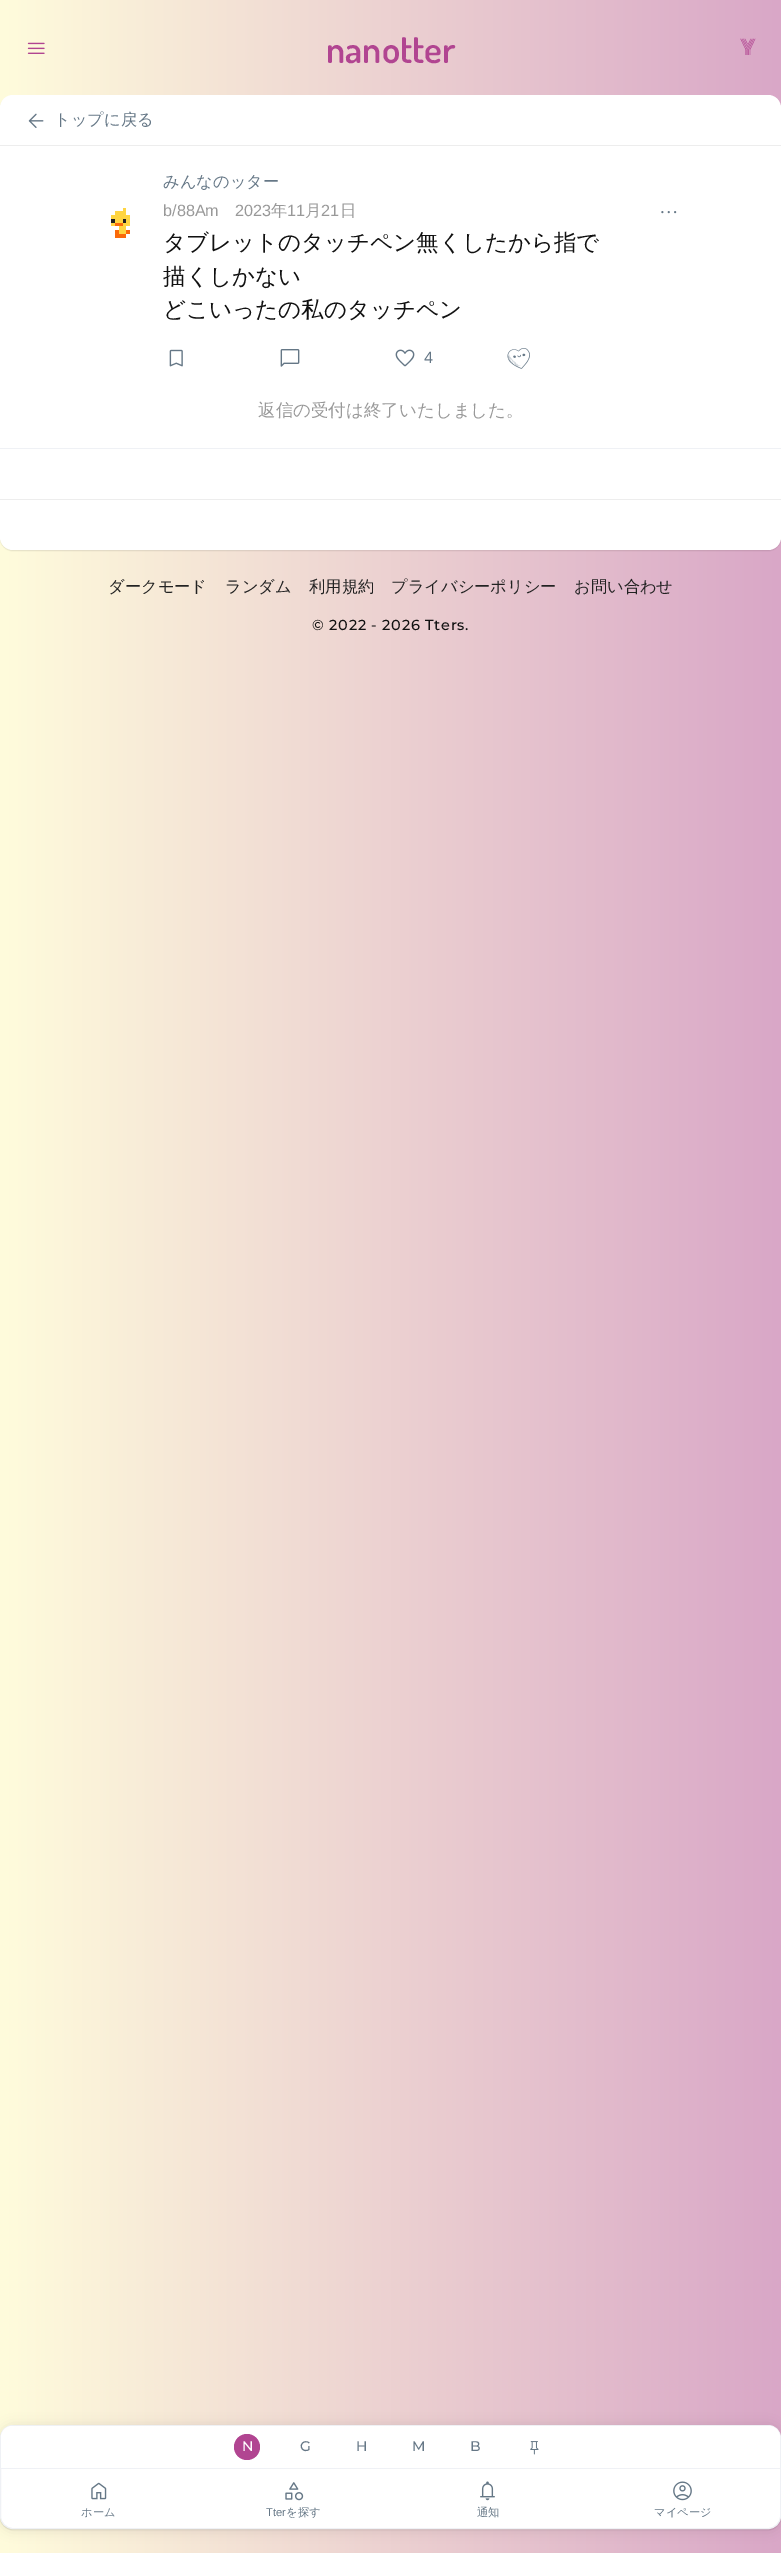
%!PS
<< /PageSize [781 2553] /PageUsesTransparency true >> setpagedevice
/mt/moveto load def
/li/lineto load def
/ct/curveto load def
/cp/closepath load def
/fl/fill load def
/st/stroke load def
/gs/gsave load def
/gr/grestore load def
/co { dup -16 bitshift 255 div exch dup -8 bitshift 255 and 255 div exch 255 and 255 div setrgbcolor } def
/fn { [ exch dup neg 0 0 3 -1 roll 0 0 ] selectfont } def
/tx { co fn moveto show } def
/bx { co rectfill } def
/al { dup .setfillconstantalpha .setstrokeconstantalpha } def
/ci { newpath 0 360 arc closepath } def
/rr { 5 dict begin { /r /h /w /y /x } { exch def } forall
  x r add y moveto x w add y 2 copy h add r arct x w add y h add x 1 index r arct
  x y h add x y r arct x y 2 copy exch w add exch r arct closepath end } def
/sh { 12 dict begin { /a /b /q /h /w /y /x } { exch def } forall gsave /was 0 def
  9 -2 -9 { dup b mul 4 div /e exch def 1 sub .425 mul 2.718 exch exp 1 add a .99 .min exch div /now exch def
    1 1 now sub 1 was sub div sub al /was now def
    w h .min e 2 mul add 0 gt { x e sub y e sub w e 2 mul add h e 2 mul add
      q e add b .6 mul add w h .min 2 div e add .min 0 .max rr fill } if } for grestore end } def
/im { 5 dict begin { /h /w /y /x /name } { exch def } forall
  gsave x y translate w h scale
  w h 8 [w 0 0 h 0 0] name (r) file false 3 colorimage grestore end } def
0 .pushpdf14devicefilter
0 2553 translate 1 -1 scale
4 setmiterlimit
0 0 781 2553 16#FFFFFF bx
gs 0 0 mt 781 0 li 781 2553 li 0 2553 li cp clip newpath
<< /ShadingType 2 /ColorSpace /DeviceRGB /Coords [0 430 781 430] /Extend [true true] /Function << /FunctionType 2 /Domain [0 1] /C0 [1 .988 .863] /C1 [.851 .655 .78] /N 1 >> >> shfill gr
(media/1.raw) 27 42 18 12 im
16#000000 co
0 96 781 455 13 .5 .1 sh
16#FFFFFF co
0 95 781 455 13 rr fl
(media/2.raw) 28 113 16 15 im
0 145 781 1 16#EDEDED bx
(media/3.raw) 111 208 19 30 im
(media/4.raw) 661 211 16 3 im
(media/5.raw) 169 349 14 18 im
(media/6.raw) 280 349 20 18 im
(media/7.raw) 395 349 20 18 im
(media/8.raw) 507 348 23 21 im
0 448 781 1 16#EFF1F5 bx
0 499 781 1 16#EDEDED bx
16#000000 co
0 2426 781 104 13 6 .1 sh
0 2426 781 104 13 .5 .1 sh
16#FFFFFF co
.5 2425.5 780 103 12.5 rr gs fl gr
16#EFF1F5 co
st
0.95 al
16#FFFFFF co
12 2426 mt 769 2426 li 775 2426 780 2431 780 2437 ct 780 2469 li 1 2469 li 1 2437 li 1 2431 6 2426 12 2426 ct cp fl
1 al
1 2468 779 1 16#EFF1F5 bx
16#B14591 co
247 2447 13 ci fl
(media/9.raw) 530 2441 9 14 im
(media/10.raw) 91 2482 16 18 im
(media/11.raw) 285 2482 19 19 im
(media/12.raw) 480 2481 15 20 im
(media/13.raw) 673 2481 19 20 im
(nanotter) 326 63 /Dosis-SemiBold 37.5 16#B14591 tx
(Y) 740 55 /Monoton-Regular 20 16#B14591 tx
(トップに戻る) 54 125 /WenQuanYiZenHei-Medium 16.25 16#657786 tx
(みんなのッター) 163 187 /WenQuanYiZenHei-Medium 16.25 16#657786 tx
(b/88Am) 163 216 /LiberationSans-Regular 16.25 16#999999 tx
(2023) 235 216 /LiberationSans-Regular 16.25 16#999999 tx
(年) 271 216 /WenQuanYiZenHei-Medium 16.25 16#999999 tx
(11) 287 216 /LiberationSans-Regular 16.25 16#999999 tx
(月) 305 216 /WenQuanYiZenHei-Medium 16.25 16#999999 tx
(21) 321 216 /LiberationSans-Regular 16.25 16#999999 tx
(日) 340 216 /WenQuanYiZenHei-Medium 16.25 16#999999 tx
(タブレットのタッチペン無くしたから指で) 163 250 /WenQuanYiZenHei-Medium 22.5 16#111111 tx
(描くしかない) 163 284 /WenQuanYiZenHei-Medium 22.5 16#111111 tx
(どこいったの私のタッチペン) 163 317 /WenQuanYiZenHei-Medium 22.5 16#111111 tx
(4) 424 363 /LiberationSans-Regular 16.25 16#657786 tx
(返信の受付は終了いたしました。) 258 416 /WenQuanYiZenHei-Medium 17.5 16#999999 tx
(ダークモード) 108 592 /WenQuanYiZenHei-Medium 16.25 16#222222 tx
(ランダム) 225 592 /WenQuanYiZenHei-Medium 16.25 16#222222 tx
(利用規約) 309 592 /WenQuanYiZenHei-Medium 16.25 16#222222 tx
(プライバシーポリシー) 391 592 /WenQuanYiZenHei-Medium 16.25 16#222222 tx
(お問い合わせ) 574 592 /WenQuanYiZenHei-Medium 16.25 16#222222 tx
/Montserrat-Medium 14.5 fn
16#111111 co
312 630 mt .75 0 (© 2022 - 2026 Tters.) ashow
(N) 242 2451 /Montserrat-Medium 14 16#FFFFFF tx
(G) 300 2451 /Montserrat-Medium 14 16#657786 tx
(H) 356 2451 /Montserrat-Medium 14 16#657786 tx
(M) 412 2451 /Montserrat-Medium 14 16#657786 tx
(B) 470 2451 /Montserrat-Medium 14 16#657786 tx
(ホーム) 81 2516 /WenQuanYiZenHei-Medium 11.25 16#657786 tx
(Tter) 266 2516 /LiberationSans-Regular 11.25 16#657786 tx
(を探す) 286 2516 /WenQuanYiZenHei-Medium 11.25 16#657786 tx
(通知) 477 2516 /WenQuanYiZenHei-Medium 11.25 16#657786 tx
(マイページ) 654 2516 /WenQuanYiZenHei-Medium 11.25 16#657786 tx
.poppdf14devicefilter showpage
